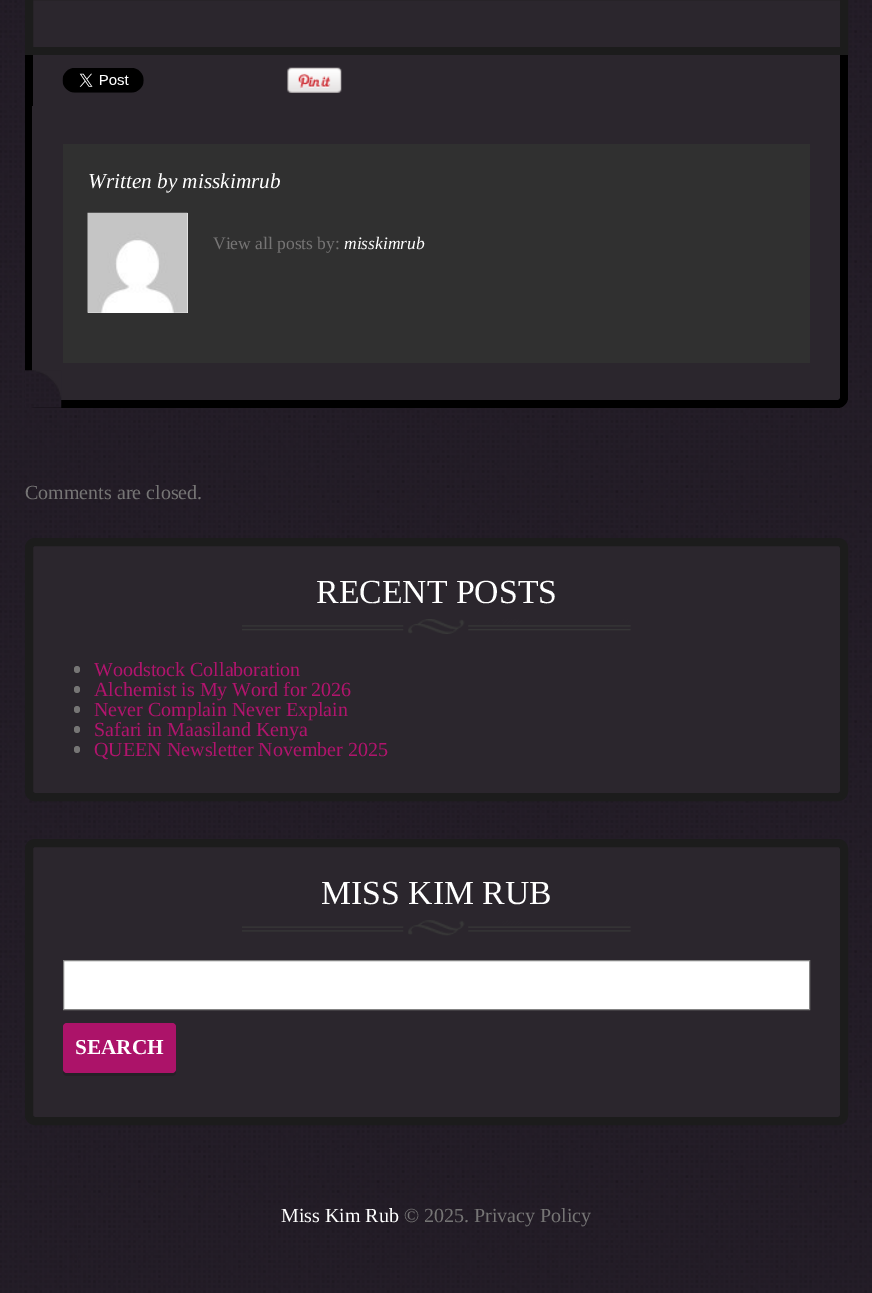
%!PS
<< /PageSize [872 1293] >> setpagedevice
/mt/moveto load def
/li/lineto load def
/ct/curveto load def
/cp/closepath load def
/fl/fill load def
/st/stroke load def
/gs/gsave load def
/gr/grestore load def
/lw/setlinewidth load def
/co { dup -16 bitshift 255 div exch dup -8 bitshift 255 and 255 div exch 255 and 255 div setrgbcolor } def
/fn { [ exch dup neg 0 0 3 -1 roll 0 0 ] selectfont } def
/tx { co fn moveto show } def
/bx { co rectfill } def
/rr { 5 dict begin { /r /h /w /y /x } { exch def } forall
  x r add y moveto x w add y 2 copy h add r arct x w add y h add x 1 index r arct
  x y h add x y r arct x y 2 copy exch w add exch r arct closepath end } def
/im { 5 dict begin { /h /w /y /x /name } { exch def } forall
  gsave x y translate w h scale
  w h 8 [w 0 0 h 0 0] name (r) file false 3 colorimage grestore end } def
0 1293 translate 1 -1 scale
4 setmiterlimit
0 0 872 1293 16#FFFFFF bx
(media/1.raw) 0 0 872 1293 im
16#2B262D co
29 -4 mt 844 -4 li 844 51 li 29 51 li cp gs fl gr
16#1C1C1C co
8 lw
st
33 55 807 51 16#2B262D bx
840 55 8 51 16#000000 bx
25 55 8 51 16#000000 bx
(media/2.raw) 62 68 82 25 im
(media/3.raw) 287 67 55 26 im
16#2B262D co
25 106 mt 848 106 li 848 398 li 848 403.5 843.5 408 838 408 ct 35 408 li 29.5 408 25 403.5 25 398 ct cp fl
16#000000 co
25 106 mt 848 106 li 848 398 li 848 403 843 408 838 408 ct 35 408 li 29 408 25 403 25 398 ct cp 32 106 mt 840 106 li 840 398 li 840 399 839 400 838 400 ct 35 400 li 34 400 32 399 32 398 ct cp eofill
63 144 747 219 16#303030 bx
88 213 100 100 16#FFFFFF bx
(media/4.raw) 87 212 101 101 im
(media/5.raw) 25 370 37 38 im
16#2B262D co
29 542 815 255 6 rr gs fl gr
16#1C1C1C co
st
(media/6.raw) 242 619 389 15 im
16#767575 co
74 666 6 7 3 rr fl
74 686 6 7 3 rr fl
74 706 6 7 3 rr fl
74 726 6 7 3 rr fl
74 746 6 7 3 rr fl
16#2B262D co
29 843 815 278 6 rr gs fl gr
16#1C1C1C co
st
(media/7.raw) 242 920 389 16 im
16#FFFFFF co
63.5 960.5 mt 809.5 960.5 li 809.5 1009.5 li 63.5 1009.5 li cp gs fl gr
16#838383 co
1 lw
st
16#252026 co
63 1071 mt 63 1072 li 63 1074 65 1076 67 1076 ct 172 1076 li 174 1076 176 1074 176 1072 ct 176 1070 li 175 1072 174 1072 172 1072 ct 66 1072 li 65 1072 64 1072 63 1071 ct cp fl
16#AC1369 co
63 1023 113 50 4 rr fl
(Written by misskimrub) 88 188 /LiberationSerif-Italic 21.25 16#FFFFFF tx
(View all posts by:) 213 249 /LiberationSerif-Regular 17.5 16#767575 tx
(misskimrub) 344 249 /LiberationSerif-Italic 17.5 16#FFFFFF tx
(Comments are closed.) 25 499 /LiberationSerif-Regular 20 16#767575 tx
(RECENT POSTS) 316 603 /LiberationSerif-Regular 33.75 16#FFFFFF tx
(Woodstock Collaboration) 94 676 /LiberationSerif-Regular 20 16#B1146D tx
(Alchemist is My Word for 2026) 94 696 /LiberationSerif-Regular 20 16#B1146D tx
(Never Complain Never Explain) 94 716 /LiberationSerif-Regular 20 16#B1146D tx
(Safari in Maasiland Kenya) 94 736 /LiberationSerif-Regular 20 16#B1146D tx
(QUEEN Newsletter November 2025) 94 756 /LiberationSerif-Regular 20 16#B1146D tx
(MISS KIM RUB) 321 904 /LiberationSerif-Regular 33.75 16#FFFFFF tx
(SEARCH) 75 1054 /LiberationSerif-Bold 21.25 16#FFFFFF tx
(Miss Kim Rub) 281 1222 /LiberationSerif-Regular 20 16#FFFFFF tx
(© 2025.) 404 1222 /LiberationSerif-Regular 20 16#767575 tx
(Privacy Policy) 474 1222 /LiberationSerif-Regular 20 16#767575 tx
showpage
